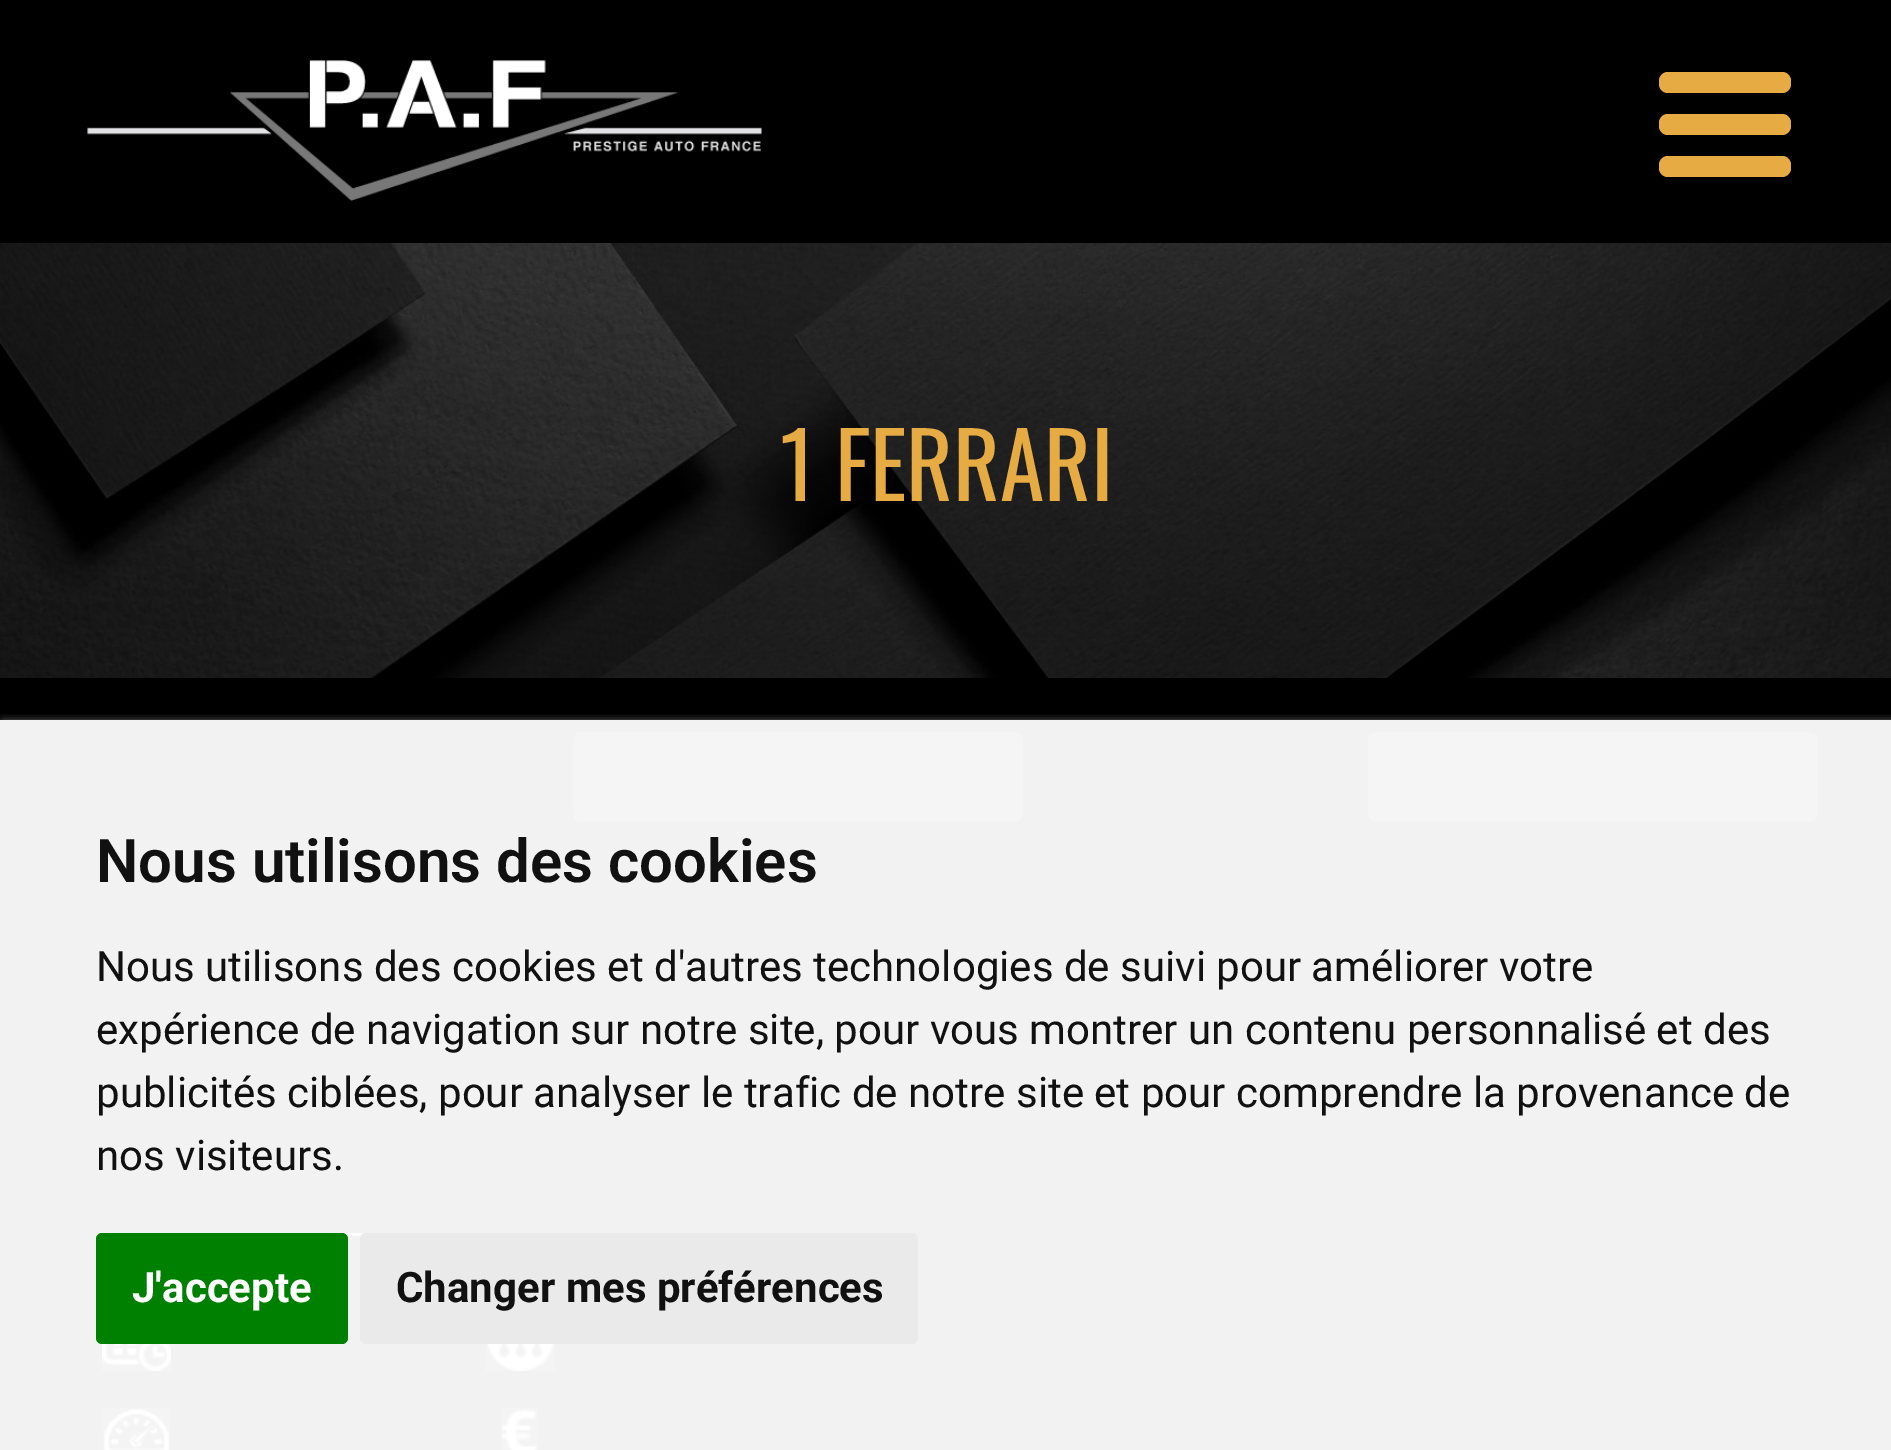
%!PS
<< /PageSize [1891 1450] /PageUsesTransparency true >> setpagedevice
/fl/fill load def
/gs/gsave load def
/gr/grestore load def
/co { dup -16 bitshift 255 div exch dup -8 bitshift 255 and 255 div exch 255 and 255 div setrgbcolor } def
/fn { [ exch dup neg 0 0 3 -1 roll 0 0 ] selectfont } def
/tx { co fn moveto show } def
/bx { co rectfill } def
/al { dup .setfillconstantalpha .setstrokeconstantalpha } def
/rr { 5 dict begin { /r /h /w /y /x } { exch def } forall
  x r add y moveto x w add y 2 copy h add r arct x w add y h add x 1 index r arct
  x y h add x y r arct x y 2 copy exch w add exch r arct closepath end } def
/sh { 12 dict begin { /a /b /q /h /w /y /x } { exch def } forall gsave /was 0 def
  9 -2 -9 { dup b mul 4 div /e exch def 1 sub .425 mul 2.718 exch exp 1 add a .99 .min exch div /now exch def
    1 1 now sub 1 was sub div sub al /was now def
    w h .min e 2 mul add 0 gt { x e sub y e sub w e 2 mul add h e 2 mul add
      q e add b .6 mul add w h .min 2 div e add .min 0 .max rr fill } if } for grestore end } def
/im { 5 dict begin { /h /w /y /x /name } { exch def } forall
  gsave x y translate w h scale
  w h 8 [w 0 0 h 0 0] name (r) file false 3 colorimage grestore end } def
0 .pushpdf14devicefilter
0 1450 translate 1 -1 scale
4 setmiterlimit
0 0 1891 1450 16#000000 bx
0 720 1891 730 16#F2F2F2 bx
(media/1.raw) 87 60 675 141 im
16#E6AC43 co
1659 72 132 21 9 rr fl
1659 114 132 21 9 rr fl
1659 156 132 21 9 rr fl
(media/2.raw) 0 243 1891 435 im
16#F5F5F5 co
573 732 450 90 9 rr fl
1368 732 450 90 9 rr fl
342 1233 24 3 16#FDFDFD bx
(media/3.raw) 102 1344 69 27 im
(media/4.raw) 486 1344 69 27 im
(media/5.raw) 103 1408 67 42 im
(media/6.raw) 501 1408 37 42 im
gs
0 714 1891 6 rectclip
16#CCCCCC co
3 723 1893 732 0 4.5 1 sh
gr
16#008000 co
96 1233 252 111 6 rr fl
16#EAEAEA co
360 1233 558 111 6 rr fl
(1 FERRARI) 780 501 /Oswald-Regular 90 16#E6AC43 tx
(Nous utilisons des cookies) 96 882 /Roboto-SemiBold 60 16#111111 tx
(Nous utilisons des cookies et d'autres technologies de suivi pour améliorer votre) 96 981 /Roboto-Regular 42 16#111111 tx
(expérience de navigation sur notre site, pour vous montrer un contenu personnalisé et des) 96 1044 /Roboto-Regular 42 16#111111 tx
(publicités ciblées, pour analyser le trafic de notre site et pour comprendre la provenance de) 96 1107 /Roboto-Regular 42 16#111111 tx
(nos visiteurs.) 96 1170 /Roboto-Regular 42 16#111111 tx
(J'accepte) 132 1302 /Roboto-Bold 42 16#FFFFFF tx
(Changer mes préférences) 396 1302 /Roboto-Bold 42 16#111111 tx
.poppdf14devicefilter showpage
